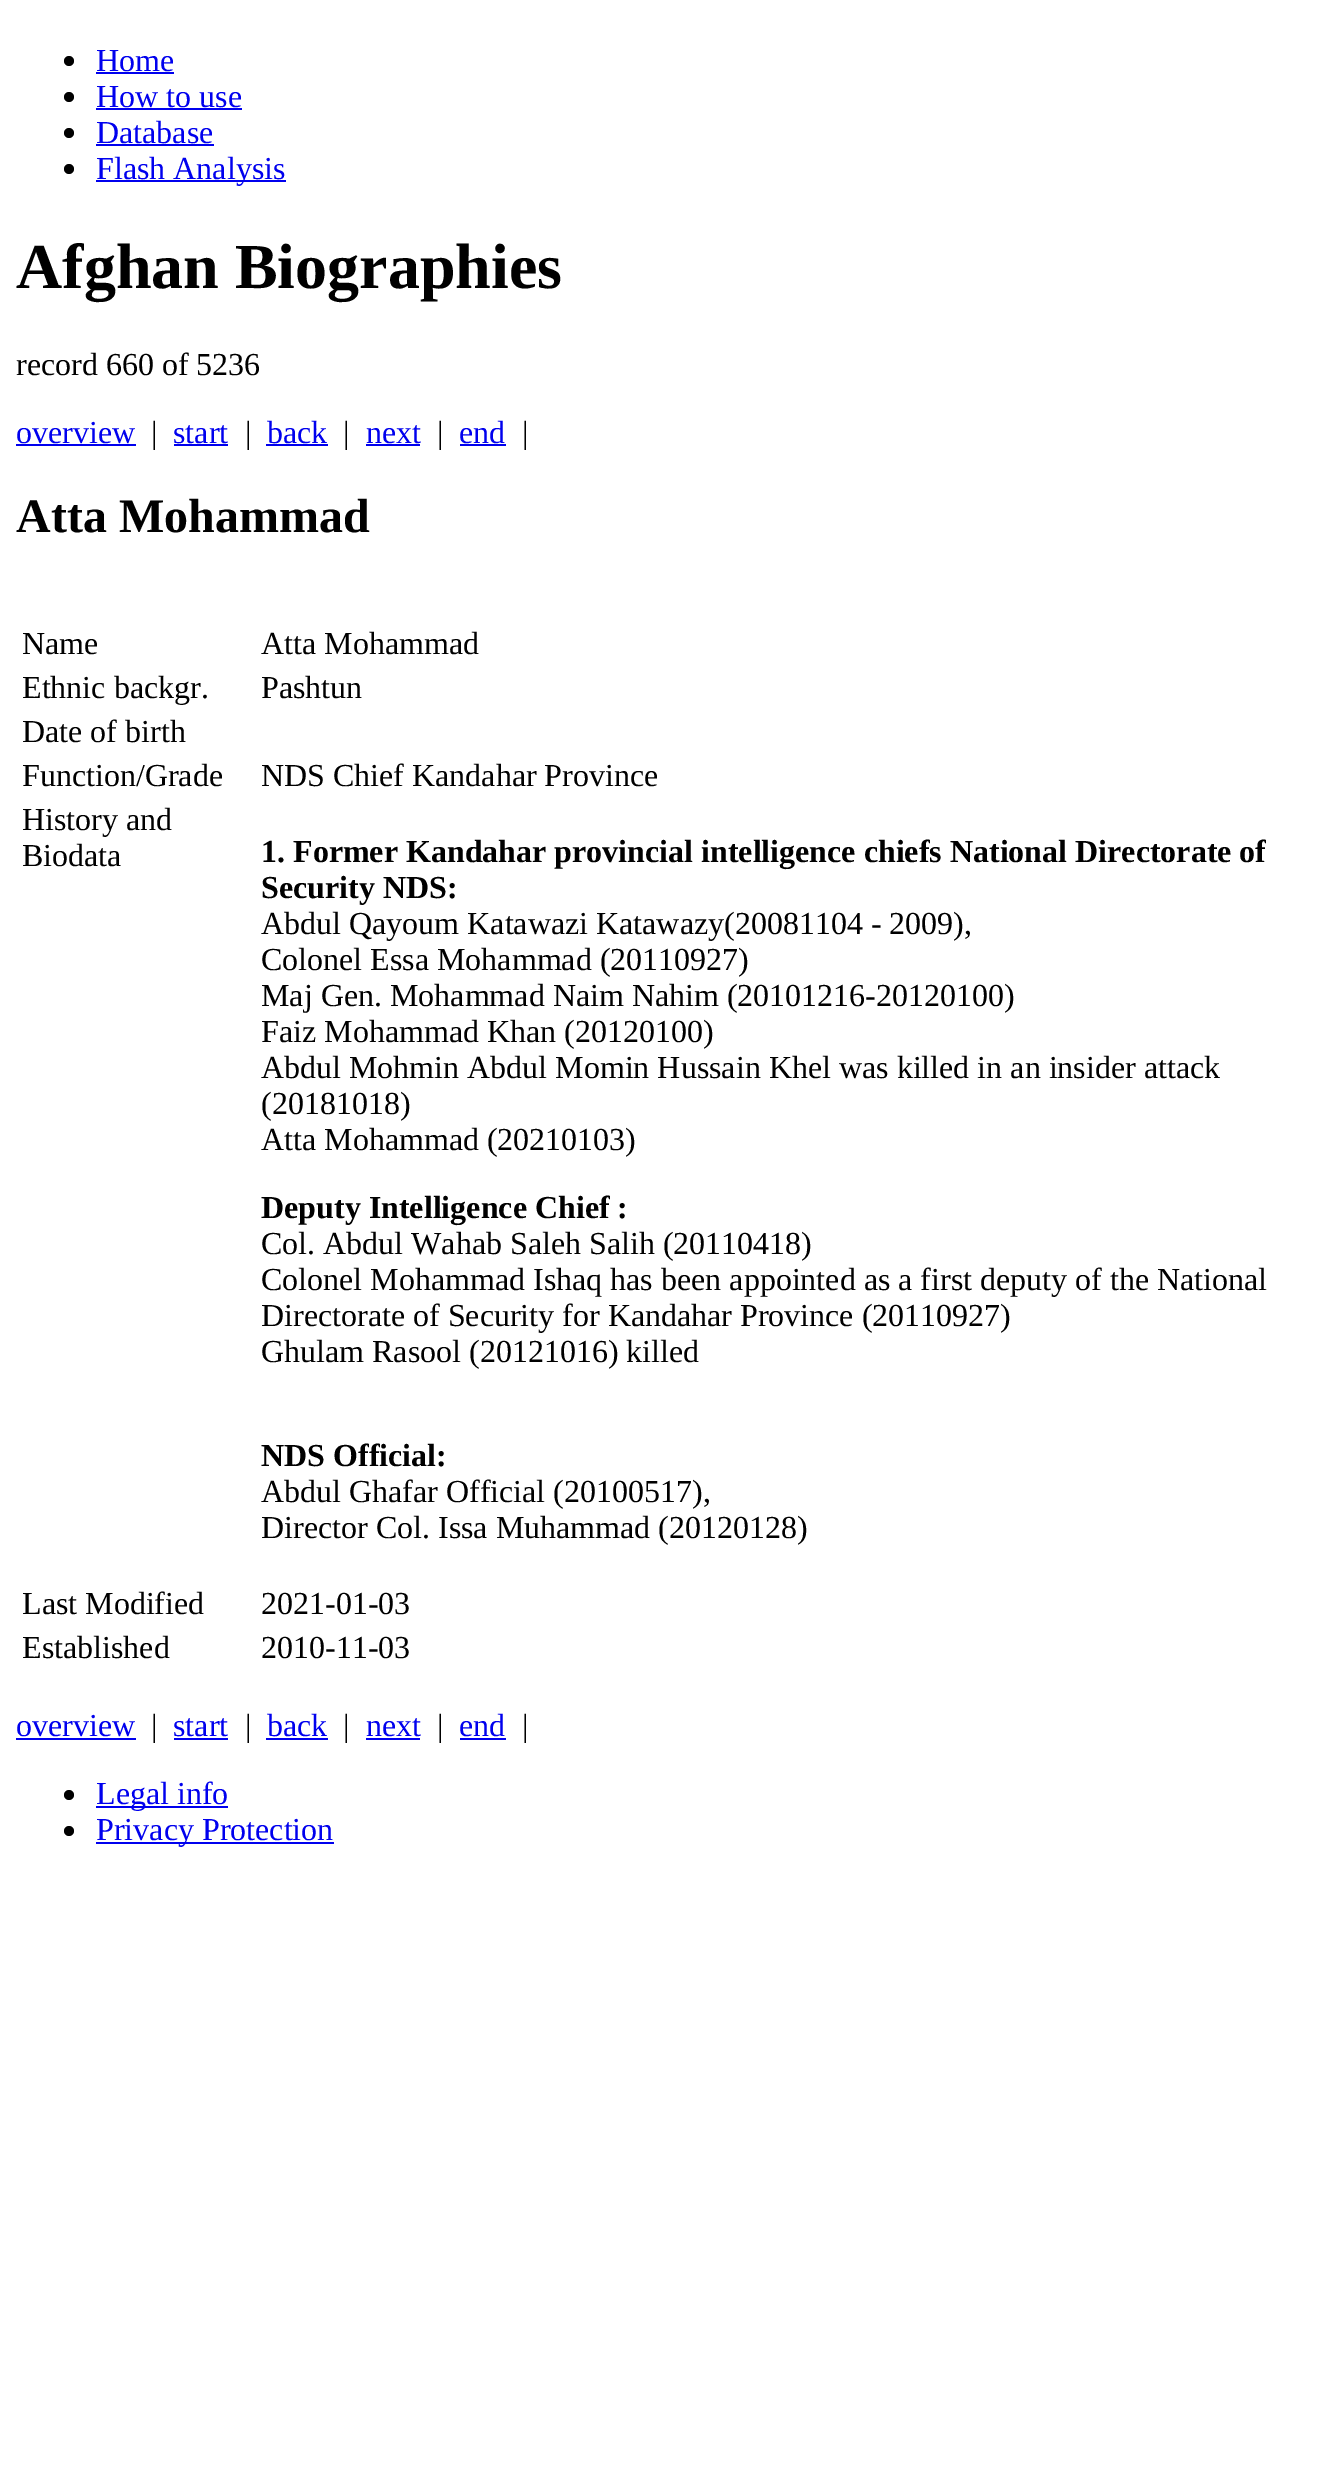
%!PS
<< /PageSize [1340 2492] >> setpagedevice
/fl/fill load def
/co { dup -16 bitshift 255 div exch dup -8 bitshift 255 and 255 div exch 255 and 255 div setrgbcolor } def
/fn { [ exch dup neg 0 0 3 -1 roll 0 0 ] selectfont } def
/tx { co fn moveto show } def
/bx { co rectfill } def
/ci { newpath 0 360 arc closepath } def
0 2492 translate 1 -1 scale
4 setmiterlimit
0 0 1340 2492 16#FFFFFF bx
16#000000 co
69 61 5 ci fl
96 72 78 2 16#0000EE bx
16#000000 co
69 97 5 ci fl
96 108 146 2 16#0000EE bx
16#000000 co
69 133 5 ci fl
96 144 118 2 16#0000EE bx
16#000000 co
69 169 5 ci fl
96 180 190 2 16#0000EE bx
16 444 120 2 16#0000EE bx
174 444 54 2 16#0000EE bx
266 444 62 2 16#0000EE bx
366 444 54 2 16#0000EE bx
460 444 46 2 16#0000EE bx
16 1738 120 2 16#0000EE bx
174 1738 54 2 16#0000EE bx
266 1738 62 2 16#0000EE bx
366 1738 54 2 16#0000EE bx
460 1738 46 2 16#0000EE bx
16#000000 co
69 1795 5 ci fl
96 1806 132 2 16#0000EE bx
16#000000 co
69 1831 5 ci fl
96 1842 238 2 16#0000EE bx
(Home) 96 71 /LiberationSerif-Regular 32 16#0000EE tx
(How to use) 96 107 /LiberationSerif-Regular 32 16#0000EE tx
(Database) 96 143 /LiberationSerif-Regular 32 16#0000EE tx
(Flash Analysis) 96 179 /LiberationSerif-Regular 32 16#0000EE tx
(Afghan Biographies) 16 288 /LiberationSerif-Bold 64 16#000000 tx
(record 660 of 5236) 16 375 /LiberationSerif-Regular 32 16#000000 tx
(overview) 16 443 /LiberationSerif-Regular 32 16#0000EE tx
(|) 151 443 /LiberationSerif-Regular 32 16#000000 tx
(start) 173 443 /LiberationSerif-Regular 32 16#0000EE tx
(|) 245 443 /LiberationSerif-Regular 32 16#000000 tx
(back) 267 443 /LiberationSerif-Regular 32 16#0000EE tx
(|) 343 443 /LiberationSerif-Regular 32 16#000000 tx
(next) 366 443 /LiberationSerif-Regular 32 16#0000EE tx
(|) 437 443 /LiberationSerif-Regular 32 16#000000 tx
(end) 459 443 /LiberationSerif-Regular 32 16#0000EE tx
(|) 522 443 /LiberationSerif-Regular 32 16#000000 tx
(Atta Mohammad) 16 532 /LiberationSerif-Bold 48 16#000000 tx
(Name) 22 654 /LiberationSerif-Regular 32 16#000000 tx
(Atta Mohammad) 261 654 /LiberationSerif-Regular 32 16#000000 tx
(Ethnic backgr.) 22 698 /LiberationSerif-Regular 32 16#000000 tx
(Pashtun) 261 698 /LiberationSerif-Regular 32 16#000000 tx
(Date of birth) 22 742 /LiberationSerif-Regular 32 16#000000 tx
(Function/Grade) 22 786 /LiberationSerif-Regular 32 16#000000 tx
(NDS Chief Kandahar Province) 261 786 /LiberationSerif-Regular 32 16#000000 tx
(History and) 22 830 /LiberationSerif-Regular 32 16#000000 tx
(Biodata) 22 866 /LiberationSerif-Regular 32 16#000000 tx
(1. Former Kandahar provincial intelligence chiefs National Directorate of) 261 862 /LiberationSerif-Bold 32 16#000000 tx
(Security NDS:) 261 898 /LiberationSerif-Bold 32 16#000000 tx
(Abdul Qayoum Katawazi Katawazy\(20081104 - 2009\),) 261 934 /LiberationSerif-Regular 32 16#000000 tx
(Colonel Essa Mohammad \(20110927\)) 261 970 /LiberationSerif-Regular 32 16#000000 tx
(Maj Gen. Mohammad Naim Nahim \(20101216-20120100\)) 261 1006 /LiberationSerif-Regular 32 16#000000 tx
(Faiz Mohammad Khan \(20120100\)) 261 1042 /LiberationSerif-Regular 32 16#000000 tx
(Abdul Mohmin Abdul Momin Hussain Khel was killed in an insider attack) 261 1078 /LiberationSerif-Regular 32 16#000000 tx
(\(20181018\)) 261 1114 /LiberationSerif-Regular 32 16#000000 tx
(Atta Mohammad \(20210103\)) 261 1150 /LiberationSerif-Regular 32 16#000000 tx
(Deputy Intelligence Chief :) 261 1218 /LiberationSerif-Bold 32 16#000000 tx
(Col. Abdul Wahab Saleh Salih \(20110418\)) 261 1254 /LiberationSerif-Regular 32 16#000000 tx
(Colonel Mohammad Ishaq has been appointed as a first deputy of the National) 261 1290 /LiberationSerif-Regular 32 16#000000 tx
(Directorate of Security for Kandahar Province \(20110927\)) 261 1326 /LiberationSerif-Regular 32 16#000000 tx
(Ghulam Rasool \(20121016\) killed) 261 1362 /LiberationSerif-Regular 32 16#000000 tx
(NDS Official:) 261 1466 /LiberationSerif-Bold 32 16#000000 tx
(Abdul Ghafar Official \(20100517\),) 261 1502 /LiberationSerif-Regular 32 16#000000 tx
(Director Col. Issa Muhammad \(20120128\)) 261 1538 /LiberationSerif-Regular 32 16#000000 tx
(Last Modified) 22 1614 /LiberationSerif-Regular 32 16#000000 tx
(2021-01-03) 261 1614 /LiberationSerif-Regular 32 16#000000 tx
(Established) 22 1658 /LiberationSerif-Regular 32 16#000000 tx
(2010-11-03) 261 1658 /LiberationSerif-Regular 32 16#000000 tx
(overview) 16 1736 /LiberationSerif-Regular 32 16#0000EE tx
(|) 151 1736 /LiberationSerif-Regular 32 16#000000 tx
(start) 173 1736 /LiberationSerif-Regular 32 16#0000EE tx
(|) 245 1736 /LiberationSerif-Regular 32 16#000000 tx
(back) 267 1736 /LiberationSerif-Regular 32 16#0000EE tx
(|) 343 1736 /LiberationSerif-Regular 32 16#000000 tx
(next) 366 1736 /LiberationSerif-Regular 32 16#0000EE tx
(|) 437 1736 /LiberationSerif-Regular 32 16#000000 tx
(end) 459 1736 /LiberationSerif-Regular 32 16#0000EE tx
(|) 522 1736 /LiberationSerif-Regular 32 16#000000 tx
(Legal info) 96 1804 /LiberationSerif-Regular 32 16#0000EE tx
(Privacy Protection) 96 1840 /LiberationSerif-Regular 32 16#0000EE tx
showpage
